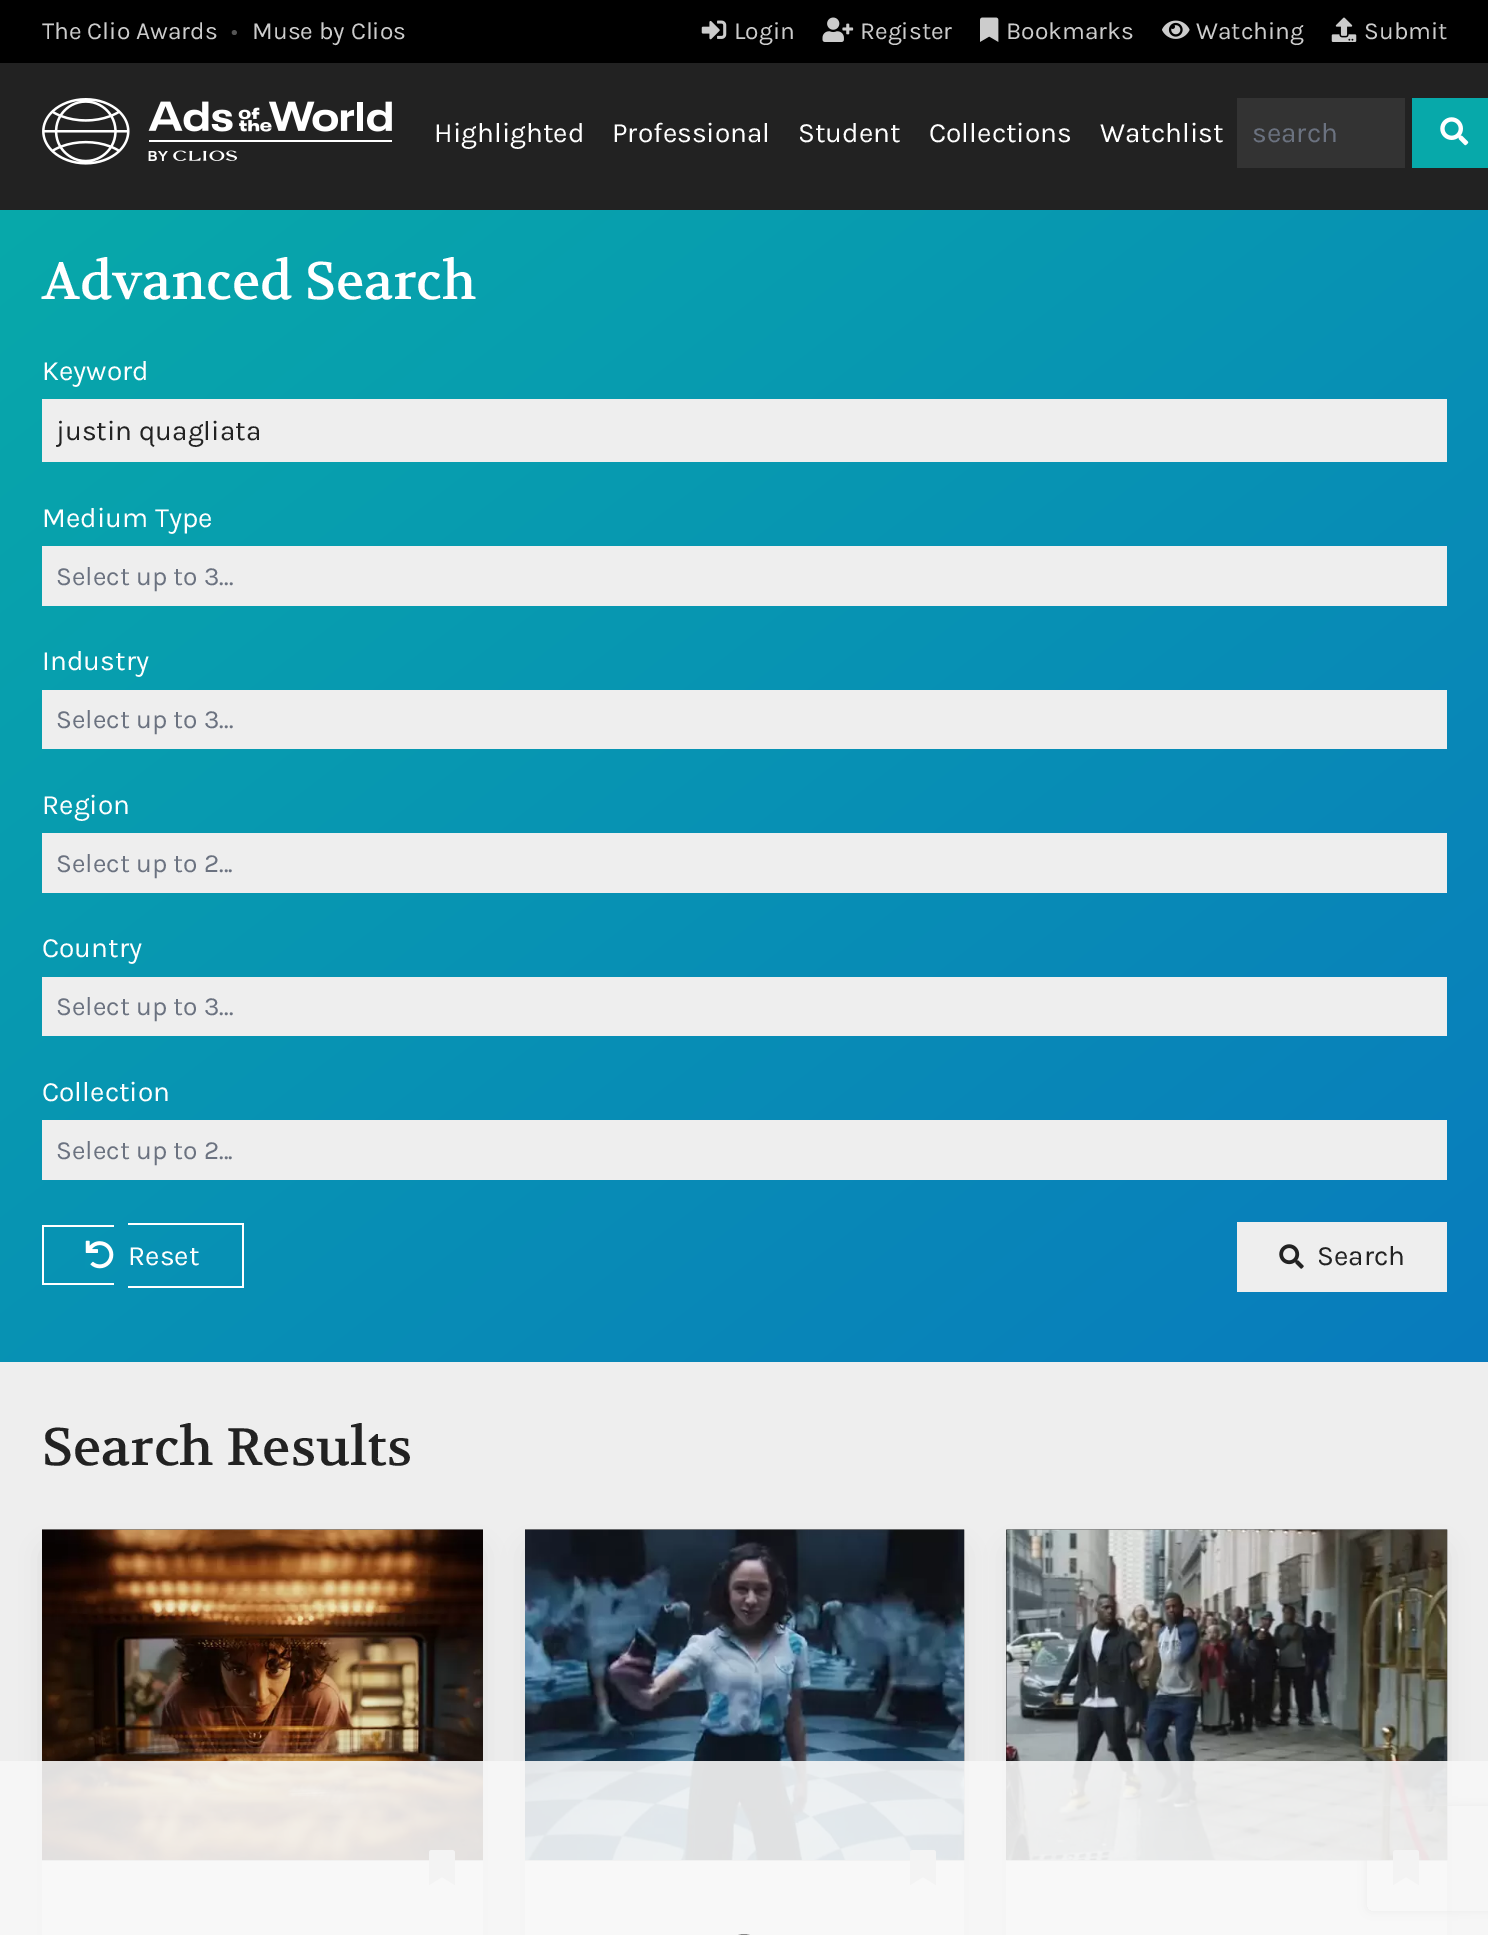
%!PS
<< /PageSize [1488 1935] /PageUsesTransparency true >> setpagedevice
/mt/moveto load def
/li/lineto load def
/ct/curveto load def
/cp/closepath load def
/fl/fill load def
/st/stroke load def
/gs/gsave load def
/gr/grestore load def
/lw/setlinewidth load def
/co { dup -16 bitshift 255 div exch dup -8 bitshift 255 and 255 div exch 255 and 255 div setrgbcolor } def
/fn { [ exch dup neg 0 0 3 -1 roll 0 0 ] selectfont } def
/tx { co fn moveto show } def
/bx { co rectfill } def
/al { dup .setfillconstantalpha .setstrokeconstantalpha } def
/rr { 5 dict begin { /r /h /w /y /x } { exch def } forall
  x r add y moveto x w add y 2 copy h add r arct x w add y h add x 1 index r arct
  x y h add x y r arct x y 2 copy exch w add exch r arct closepath end } def
/sh { 12 dict begin { /a /b /q /h /w /y /x } { exch def } forall gsave /was 0 def
  9 -2 -9 { dup b mul 4 div /e exch def 1 sub .425 mul 2.718 exch exp 1 add a .99 .min exch div /now exch def
    1 1 now sub 1 was sub div sub al /was now def
    w h .min e 2 mul add 0 gt { x e sub y e sub w e 2 mul add h e 2 mul add
      q e add b .6 mul add w h .min 2 div e add .min 0 .max rr fill } if } for grestore end } def
/im { 5 dict begin { /h /w /y /x /name } { exch def } forall
  gsave x y translate w h scale
  w h 8 [w 0 0 h 0 0] name (r) file false 3 colorimage grestore end } def
0 .pushpdf14devicefilter
0 1935 translate 1 -1 scale
4 setmiterlimit
0 0 1488 1935 16#EEEEEE bx
0 0 1488 63 16#000000 bx
(media/1.raw) 701 20 26 20 im
(media/2.raw) 822 17 32 25 im
(media/3.raw) 980 17 19 25 im
(media/4.raw) 1162 20 28 19 im
(media/5.raw) 1331 17 26 25 im
0 63 1488 147 16#222222 bx
(media/6.raw) 42 98 350 67 im
1237 98 168 70 16#333333 bx
1412 98 76 70 16#07A9AA bx
(media/7.raw) 1440 117 29 29 im
gs 0 210 mt 1488 210 li 1488 1362 li 0 1362 li cp clip newpath
<< /ShadingType 2 /ColorSpace /DeviceRGB /Coords [187 65 1302 1506] /Extend [true true] /Function << /FunctionType 2 /Domain [0 1] /C0 [.027 .663 .667] /C1 [.031 .482 .741] /N 1 >> >> shfill gr
42 399 1405 63 16#EEEEEE bx
42 546 1405 60 16#EEEEEE bx
42 690 1405 59 16#EEEEEE bx
42 833 1405 60 16#EEEEEE bx
42 977 1405 59 16#EEEEEE bx
42 1120 1405 60 16#EEEEEE bx
42 1225 72 2 16#FFFFFF bx
42 1283 72 2 16#FFFFFF bx
42 1225 2 60 16#FFFFFF bx
128 1223 115 2 16#FFFFFF bx
242 1223 2 65 16#FFFFFF bx
128 1286 115 2 16#FFFFFF bx
(media/8.raw) 85 1240 29 29 im
1237 1222 210 70 16#EEEEEE bx
(media/9.raw) 1279 1244 25 25 im
16#000000 co
47 1552 431 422 0 13 .1 sh
42 1860 441 75 16#FFFFFF bx
(media/10.raw) 42 1529 441 332 im
(media/11.raw) 42 1529 441 332 im
16#CCCCCC co
429 1885 mt 429 1853 li 429 1851 430 1850 432 1850 ct 451.5 1850 li 453.5 1850 455 1851 455 1853 ct 455 1885 li 442 1877 li cp fl
16#000000 co
530 1552 429 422 0 13 .1 sh
525 1860 439 75 16#FFFFFF bx
(media/12.raw) 525 1529 440 332 im
(media/13.raw) 525 1529 440 332 im
16#CCCCCC co
910 1885 mt 910 1853 li 910 1851 911.5 1850 913.5 1850 ct 933 1850 li 935 1850 936 1851 936 1853 ct 936 1885 li 923 1877 li cp fl
16#000000 co
1012 1552 430 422 0 13 .1 sh
1006 1530 441 405 16#FFFFFF bx
(media/14.raw) 1006 1529 442 332 im
(media/15.raw) 1006 1529 442 332 im
16#CCCCCC co
1393 1885 mt 1393 1853 li 1393 1851 1394.5 1850 1396.5 1850 ct 1416 1850 li 1418 1850 1419 1851 1419 1853 ct 1419 1885 li 1406 1877 li cp fl
gs
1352 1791 mt 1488 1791 li 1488 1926 li 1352 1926 li cp 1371 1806 mt 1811 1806 li 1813 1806 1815 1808 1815 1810 ct 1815 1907 li 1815 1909 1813 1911 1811 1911 ct 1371 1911 li 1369 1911 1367 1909 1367 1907 ct 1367 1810 li 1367 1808 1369 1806 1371 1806 ct cp eoclip newpath
16#808080 co
1367 1806 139 105 4 4.5 1 sh
gr
0.9 al
0 1761 1488 174 16#F7F7F7 bx
1 al
16#888888 co
2 lw
726 1935 36 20 18 rr st
(The Clio Awards) 42 39 /Karla-Regular 24.5 16#CCCCCC tx
(•) 231 39 /Karla-Regular 24.5 16#555555 tx
(Muse by Clios) 252 39 /Karla-Regular 24.5 16#CCCCCC tx
(Login) 734 39 /Karla-Regular 24.5 16#CCCCCC tx
(Register) 860 39 /Karla-Regular 24.5 16#CCCCCC tx
(Bookmarks) 1006 39 /Karla-Regular 24.5 16#CCCCCC tx
(Watching) 1196 39 /Karla-Regular 24.5 16#CCCCCC tx
(Submit) 1364 39 /Karla-Regular 24.5 16#CCCCCC tx
(Highlighted) 434 142 /Karla-Regular 28 16#FFFFFF tx
(Professional) 612 142 /Karla-Regular 28 16#FFFFFF tx
(Student) 798 142 /Karla-Regular 28 16#FFFFFF tx
(Collections) 929 142 /Karla-Regular 28 16#FFFFFF tx
(Watchlist) 1100 142 /Karla-Regular 28 16#FFFFFF tx
(search) 1252 142 /Karla-Regular 28 16#6B7280 tx
(Advanced Search) 42 299 /Volkhov-Regular 52.5 16#FFFFFF tx
(Keyword) 42 380 /Karla-Regular 28 16#FFFFFF tx
gs
56 415 1370 33 rectclip
(justin quagliata) 56 440 /Karla-Regular 28 16#222222 tx
gr
(Medium Type) 42 527 /Karla-Regular 28 16#FFFFFF tx
(Select up to 3...) 56 585 /Karla-Regular 26.25 16#6B7280 tx
(Industry) 42 670 /Karla-Regular 28 16#FFFFFF tx
(Select up to 3...) 56 728 /Karla-Regular 26.25 16#6B7280 tx
(Region) 42 814 /Karla-Regular 28 16#FFFFFF tx
(Select up to 2...) 56 872 /Karla-Regular 26.25 16#6B7280 tx
(Country) 42 957 /Karla-Regular 28 16#FFFFFF tx
(Select up to 3...) 56 1015 /Karla-Regular 26.25 16#6B7280 tx
(Collection) 42 1101 /Karla-Regular 28 16#FFFFFF tx
(Select up to 2...) 56 1159 /Karla-Regular 26.25 16#6B7280 tx
(Reset) 128 1265 /Karla-Regular 28 16#FFFFFF tx
(Search) 1317 1265 /Karla-Regular 28 16#222222 tx
(Search Results) 42 1465 /Volkhov-Regular 52.5 16#222222 tx
.poppdf14devicefilter showpage
